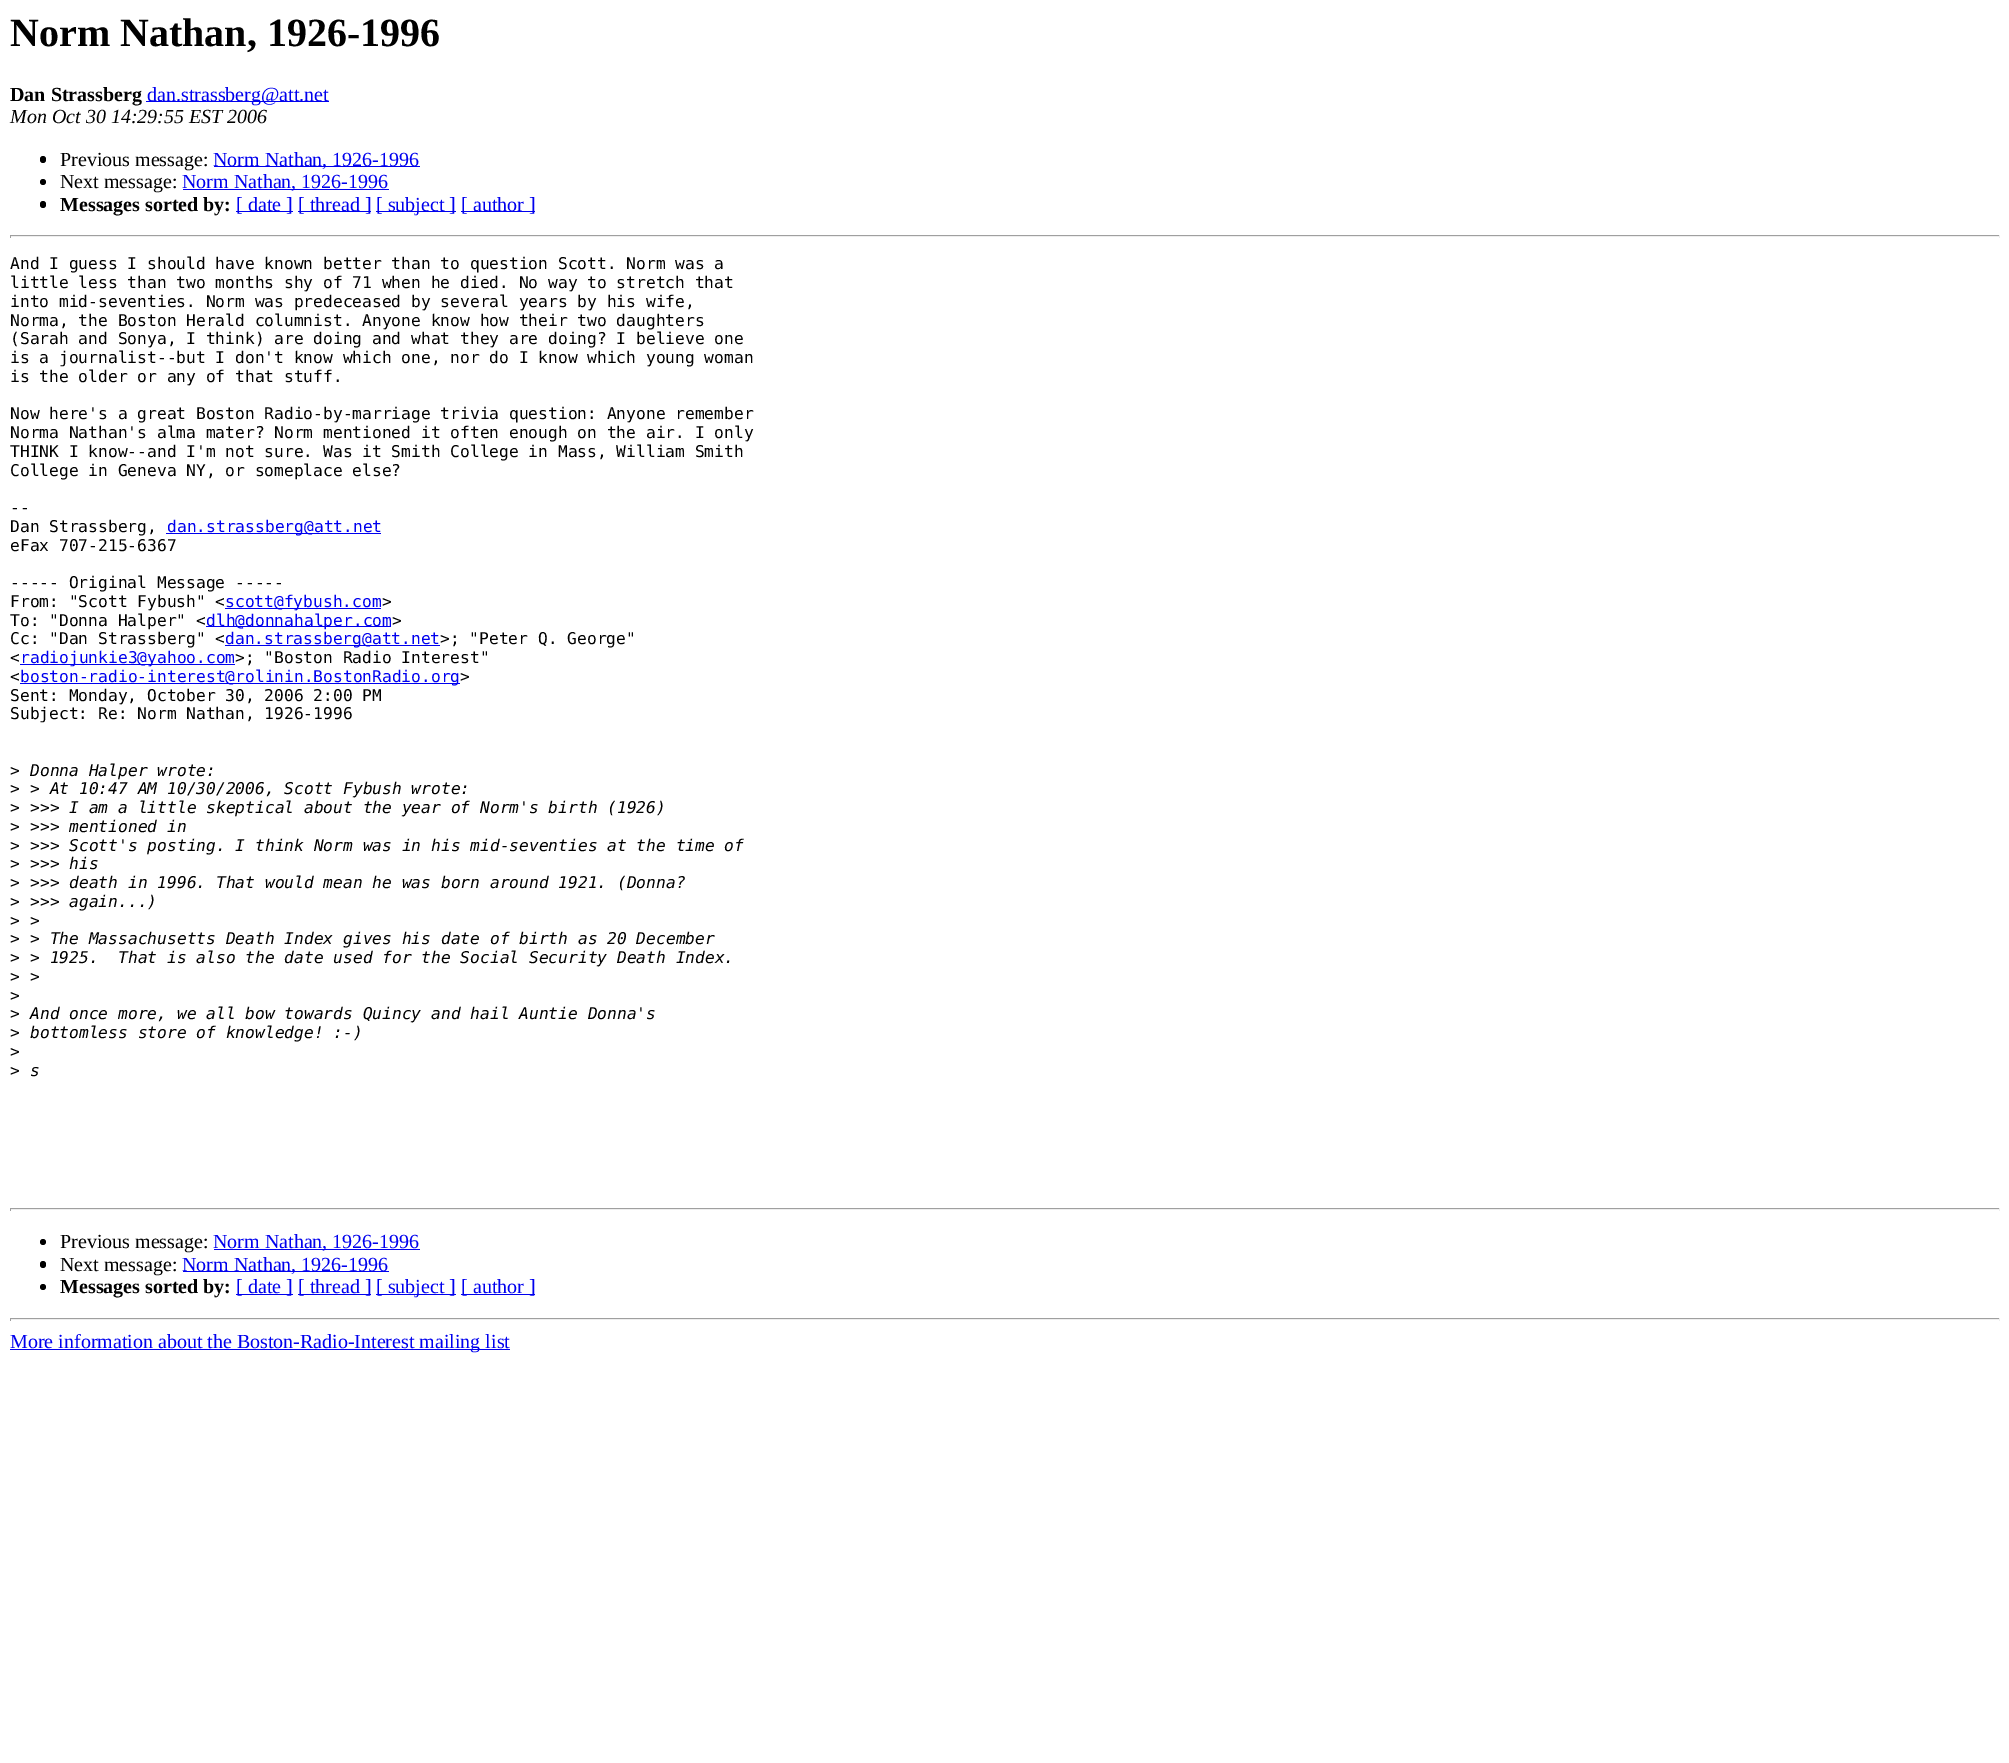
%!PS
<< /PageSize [2009 1763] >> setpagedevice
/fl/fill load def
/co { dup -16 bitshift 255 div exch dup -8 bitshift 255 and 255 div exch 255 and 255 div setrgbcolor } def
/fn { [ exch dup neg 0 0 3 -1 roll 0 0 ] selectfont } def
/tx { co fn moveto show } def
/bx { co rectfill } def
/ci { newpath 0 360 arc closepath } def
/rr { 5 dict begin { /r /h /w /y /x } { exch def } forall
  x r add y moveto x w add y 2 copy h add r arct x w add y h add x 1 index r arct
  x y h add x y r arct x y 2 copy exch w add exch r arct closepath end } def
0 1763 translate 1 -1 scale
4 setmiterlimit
0 0 2009 1763 16#FFFFFF bx
146 101 183 1 16#0000EE bx
16#000000 co
40 156 6 7 3 rr fl
214 166 206 1 16#0000EE bx
16#000000 co
43 182 3 ci fl
183 189 206 1 16#0000EE bx
16#000000 co
40 201 6 7 3 rr fl
236 211 57 1 16#0000EE bx
298 211 73 1 16#0000EE bx
376 211 80 1 16#0000EE bx
461 211 74 1 16#0000EE bx
10 235 1990 1 16#9F9F9F bx
1999 235 1 3 16#EEEEEE bx
10 236 1990 1 16#EEEEEE bx
10 235 1 3 16#9F9F9F bx
166 533 215 1 16#0000EE bx
225 608 156 1 16#0000EE bx
206 626 185 1 16#0000EE bx
225 645 215 1 16#0000EE bx
20 664 215 1 16#0000EE bx
20 683 440 1 16#0000EE bx
10 1208 1990 1 16#9F9F9F bx
1999 1208 1 3 16#EEEEEE bx
10 1209 1990 1 16#EEEEEE bx
10 1208 1 3 16#9F9F9F bx
16#000000 co
43 1242 3 ci fl
214 1249 206 1 16#0000EE bx
16#000000 co
40 1261 6 7 3 rr fl
183 1271 206 1 16#0000EE bx
16#000000 co
43 1287 3 ci fl
236 1294 57 1 16#0000EE bx
298 1294 73 1 16#0000EE bx
376 1294 80 1 16#0000EE bx
461 1294 74 1 16#0000EE bx
10 1318 1990 1 16#9F9F9F bx
1999 1318 1 3 16#EEEEEE bx
10 1319 1990 1 16#EEEEEE bx
10 1318 1 3 16#9F9F9F bx
10 1349 500 1 16#0000EE bx
(Norm Nathan, 1926-1996) 10 46 /LiberationSerif-Bold 40 16#000000 tx
(Dan Strassberg) 10 101 /LiberationSerif-Bold 20 16#000000 tx
(dan.strassberg@att.net) 147 101 /LiberationSerif-Regular 20 16#0000EE tx
(Mon Oct 30 14:29:55 EST 2006) 10 123 /LiberationSerif-Italic 20 16#000000 tx
(Previous message:) 60 166 /LiberationSerif-Regular 20 16#000000 tx
(Norm Nathan, 1926-1996) 213 166 /LiberationSerif-Regular 20 16#0000EE tx
(Next message:) 60 188 /LiberationSerif-Regular 20 16#000000 tx
(Norm Nathan, 1926-1996) 182 188 /LiberationSerif-Regular 20 16#0000EE tx
(Messages sorted by:) 60 211 /LiberationSerif-Bold 20 16#000000 tx
([ date ]) 236 211 /LiberationSerif-Regular 20 16#0000EE tx
([ thread ]) 298 211 /LiberationSerif-Regular 20 16#0000EE tx
([ subject ]) 376 211 /LiberationSerif-Regular 20 16#0000EE tx
([ author ]) 461 211 /LiberationSerif-Regular 20 16#0000EE tx
(And I guess I should have known better than to question Scott. Norm was a) 10 269 /DejaVuSansMono-Regular 16.25 16#000000 tx
(little less than two months shy of 71 when he died. No way to stretch that) 10 288 /DejaVuSansMono-Regular 16.25 16#000000 tx
(into mid-seventies. Norm was predeceased by several years by his wife,) 10 307 /DejaVuSansMono-Regular 16.25 16#000000 tx
(Norma, the Boston Herald columnist. Anyone know how their two daughters) 10 326 /DejaVuSansMono-Regular 16.25 16#000000 tx
(\(Sarah and Sonya, I think\) are doing and what they are doing? I believe one) 10 344 /DejaVuSansMono-Regular 16.25 16#000000 tx
(is a journalist--but I don't know which one, nor do I know which young woman) 10 363 /DejaVuSansMono-Regular 16.25 16#000000 tx
(is the older or any of that stuff.) 10 382 /DejaVuSansMono-Regular 16.25 16#000000 tx
(Now here's a great Boston Radio-by-marriage trivia question: Anyone remember) 10 419 /DejaVuSansMono-Regular 16.25 16#000000 tx
(Norma Nathan's alma mater? Norm mentioned it often enough on the air. I only) 10 438 /DejaVuSansMono-Regular 16.25 16#000000 tx
(THINK I know--and I'm not sure. Was it Smith College in Mass, William Smith) 10 457 /DejaVuSansMono-Regular 16.25 16#000000 tx
(College in Geneva NY, or someplace else?) 10 476 /DejaVuSansMono-Regular 16.25 16#000000 tx
(--) 10 513 /DejaVuSansMono-Regular 16.25 16#000000 tx
(Dan Strassberg,) 10 532 /DejaVuSansMono-Regular 16.25 16#000000 tx
(dan.strassberg@att.net) 167 532 /DejaVuSansMono-Regular 16.25 16#0000EE tx
(eFax 707-215-6367) 10 551 /DejaVuSansMono-Regular 16.25 16#000000 tx
(----- Original Message -----) 10 588 /DejaVuSansMono-Regular 16.25 16#000000 tx
(From: "Scott Fybush" <) 10 607 /DejaVuSansMono-Regular 16.25 16#000000 tx
(scott@fybush.com) 225 607 /DejaVuSansMono-Regular 16.25 16#0000EE tx
(>) 382 607 /DejaVuSansMono-Regular 16.25 16#000000 tx
(To: "Donna Halper" <) 10 626 /DejaVuSansMono-Regular 16.25 16#000000 tx
(dlh@donnahalper.com) 206 626 /DejaVuSansMono-Regular 16.25 16#0000EE tx
(>) 392 626 /DejaVuSansMono-Regular 16.25 16#000000 tx
(Cc: "Dan Strassberg" <) 10 644 /DejaVuSansMono-Regular 16.25 16#000000 tx
(dan.strassberg@att.net) 225 644 /DejaVuSansMono-Regular 16.25 16#0000EE tx
(>; "Peter Q. George") 440 644 /DejaVuSansMono-Regular 16.25 16#000000 tx
(<) 10 663 /DejaVuSansMono-Regular 16.25 16#000000 tx
(radiojunkie3@yahoo.com) 20 663 /DejaVuSansMono-Regular 16.25 16#0000EE tx
(>; "Boston Radio Interest") 235 663 /DejaVuSansMono-Regular 16.25 16#000000 tx
(<) 10 682 /DejaVuSansMono-Regular 16.25 16#000000 tx
(boston-radio-interest@rolinin.BostonRadio.org) 20 682 /DejaVuSansMono-Regular 16.25 16#0000EE tx
(>) 460 682 /DejaVuSansMono-Regular 16.25 16#000000 tx
(Sent: Monday, October 30, 2006 2:00 PM) 10 701 /DejaVuSansMono-Regular 16.25 16#000000 tx
(Subject: Re: Norm Nathan, 1926-1996) 10 719 /DejaVuSansMono-Regular 16.25 16#000000 tx
(>) 10 776 /DejaVuSansMono-Regular 16.25 16#000000 tx
(Donna Halper wrote:) 30 776 /DejaVuSansMono-Italic 16.25 16#000000 tx
(>) 10 794 /DejaVuSansMono-Regular 16.25 16#000000 tx
(> At 10:47 AM 10/30/2006, Scott Fybush wrote:) 30 794 /DejaVuSansMono-Italic 16.25 16#000000 tx
(>) 10 813 /DejaVuSansMono-Regular 16.25 16#000000 tx
(>>> I am a little skeptical about the year of Norm's birth \(1926\)) 30 813 /DejaVuSansMono-Italic 16.25 16#000000 tx
(>) 10 832 /DejaVuSansMono-Regular 16.25 16#000000 tx
(>>> mentioned in) 30 832 /DejaVuSansMono-Italic 16.25 16#000000 tx
(>) 10 851 /DejaVuSansMono-Regular 16.25 16#000000 tx
(>>> Scott's posting. I think Norm was in his mid-seventies at the time of) 30 851 /DejaVuSansMono-Italic 16.25 16#000000 tx
(>) 10 869 /DejaVuSansMono-Regular 16.25 16#000000 tx
(>>> his) 30 869 /DejaVuSansMono-Italic 16.25 16#000000 tx
(>) 10 888 /DejaVuSansMono-Regular 16.25 16#000000 tx
(>>> death in 1996. That would mean he was born around 1921. \(Donna?) 30 888 /DejaVuSansMono-Italic 16.25 16#000000 tx
(>) 10 907 /DejaVuSansMono-Regular 16.25 16#000000 tx
(>>> again...\)) 30 907 /DejaVuSansMono-Italic 16.25 16#000000 tx
(>) 10 926 /DejaVuSansMono-Regular 16.25 16#000000 tx
(>) 30 926 /DejaVuSansMono-Italic 16.25 16#000000 tx
(>) 10 944 /DejaVuSansMono-Regular 16.25 16#000000 tx
(> The Massachusetts Death Index gives his date of birth as 20 December) 30 944 /DejaVuSansMono-Italic 16.25 16#000000 tx
(>) 10 963 /DejaVuSansMono-Regular 16.25 16#000000 tx
(> 1925.  That is also the date used for the Social Security Death Index.) 30 963 /DejaVuSansMono-Italic 16.25 16#000000 tx
(>) 10 982 /DejaVuSansMono-Regular 16.25 16#000000 tx
(>) 30 982 /DejaVuSansMono-Italic 16.25 16#000000 tx
(>) 10 1001 /DejaVuSansMono-Regular 16.25 16#000000 tx
(>) 10 1019 /DejaVuSansMono-Regular 16.25 16#000000 tx
(And once more, we all bow towards Quincy and hail Auntie Donna's) 30 1019 /DejaVuSansMono-Italic 16.25 16#000000 tx
(>) 10 1038 /DejaVuSansMono-Regular 16.25 16#000000 tx
(bottomless store of knowledge! :-\)) 30 1038 /DejaVuSansMono-Italic 16.25 16#000000 tx
(>) 10 1057 /DejaVuSansMono-Regular 16.25 16#000000 tx
(>) 10 1076 /DejaVuSansMono-Regular 16.25 16#000000 tx
(s) 30 1076 /DejaVuSansMono-Italic 16.25 16#000000 tx
(Previous message:) 60 1248 /LiberationSerif-Regular 20 16#000000 tx
(Norm Nathan, 1926-1996) 213 1248 /LiberationSerif-Regular 20 16#0000EE tx
(Next message:) 60 1271 /LiberationSerif-Regular 20 16#000000 tx
(Norm Nathan, 1926-1996) 182 1271 /LiberationSerif-Regular 20 16#0000EE tx
(Messages sorted by:) 60 1293 /LiberationSerif-Bold 20 16#000000 tx
([ date ]) 236 1293 /LiberationSerif-Regular 20 16#0000EE tx
([ thread ]) 298 1293 /LiberationSerif-Regular 20 16#0000EE tx
([ subject ]) 376 1293 /LiberationSerif-Regular 20 16#0000EE tx
([ author ]) 461 1293 /LiberationSerif-Regular 20 16#0000EE tx
(More information about the Boston-Radio-Interest mailing list) 10 1348 /LiberationSerif-Regular 20 16#0000EE tx
showpage
